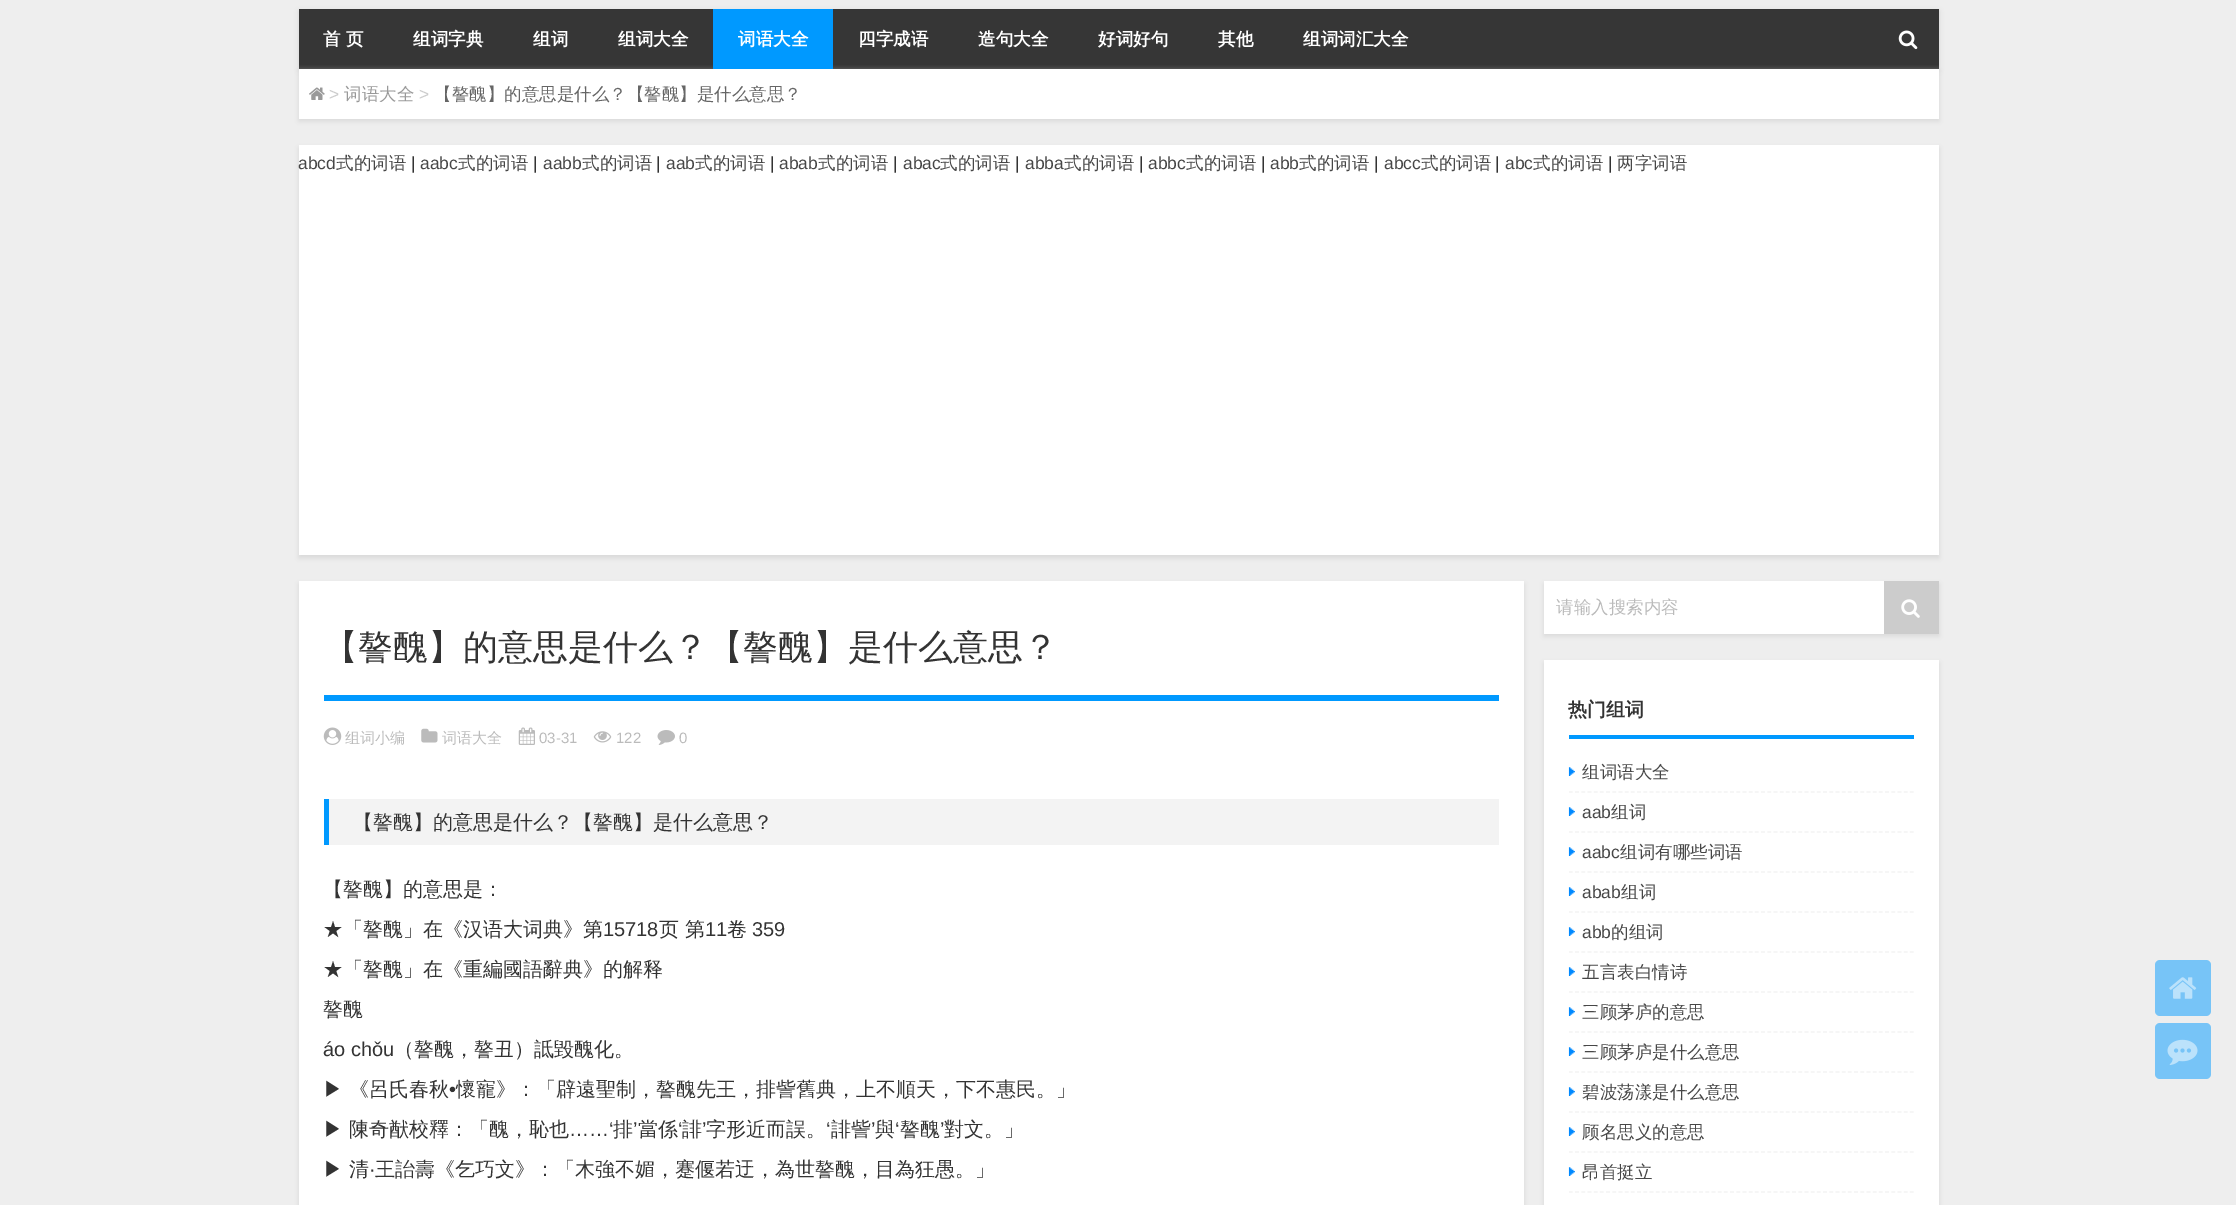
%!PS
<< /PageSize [2236 1205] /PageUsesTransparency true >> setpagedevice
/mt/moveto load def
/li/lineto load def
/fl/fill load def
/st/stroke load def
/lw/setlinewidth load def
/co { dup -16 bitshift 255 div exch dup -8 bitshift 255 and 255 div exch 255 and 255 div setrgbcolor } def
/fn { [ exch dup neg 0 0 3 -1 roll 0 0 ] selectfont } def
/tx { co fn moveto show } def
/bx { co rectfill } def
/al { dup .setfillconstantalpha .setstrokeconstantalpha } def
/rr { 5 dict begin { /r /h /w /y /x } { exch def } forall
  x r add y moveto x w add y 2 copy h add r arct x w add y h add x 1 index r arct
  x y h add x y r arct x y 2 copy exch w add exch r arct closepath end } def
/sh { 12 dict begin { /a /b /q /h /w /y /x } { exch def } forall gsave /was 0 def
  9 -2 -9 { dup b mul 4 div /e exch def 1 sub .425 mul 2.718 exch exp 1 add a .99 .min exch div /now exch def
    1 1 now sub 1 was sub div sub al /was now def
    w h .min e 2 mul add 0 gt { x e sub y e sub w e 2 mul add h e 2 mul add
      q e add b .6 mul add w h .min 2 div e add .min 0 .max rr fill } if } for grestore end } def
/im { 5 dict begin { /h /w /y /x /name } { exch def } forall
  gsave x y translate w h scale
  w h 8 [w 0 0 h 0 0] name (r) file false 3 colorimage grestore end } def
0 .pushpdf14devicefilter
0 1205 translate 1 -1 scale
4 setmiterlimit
0 0 2236 1205 16#EEEEEE bx
16#000000 co
299 11 1640 60 0 2.5 .1 sh
299 9 1640 60 16#363636 bx
16#D9D9D9 co
299 71 1640 50 0 2.5 1 sh
713 9 120 60 16#0099FF bx
(media/1.raw) 1898 30 20 20 im
299 69 1640 50 16#FFFFFF bx
(media/2.raw) 309 87 16 13 im
16#D9D9D9 co
299 148 1640 410 0 2.5 1 sh
299 145 1640 410 16#FFFFFF bx
16#D9D9D9 co
299 584 1225 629 0 2.5 1 sh
299 581 1225 624 16#FFFFFF bx
324 695 1175 6 16#0099FF bx
(media/3.raw) 323 727 19 18 im
(media/4.raw) 421 728 17 15 im
(media/5.raw) 518 727 17 18 im
(media/6.raw) 593 731 19 12 im
(media/7.raw) 657 730 18 15 im
329 799 1170 46 16#F3F3F3 bx
324 799 5 46 16#0099FF bx
16#D9D9D9 co
1544 584 395 52 0 2.5 1 sh
1544 581 340 53 16#FFFFFF bx
1884 581 55 53 16#CCCCCC bx
(media/8.raw) 1901 599 19 19 im
16#D9D9D9 co
1544 663 395 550 0 2.5 1 sh
1544 660 395 545 16#FFFFFF bx
1569 735 345 4 16#0099FF bx
(media/9.raw) 1568 767 7 9 im
16#F3F3F3 co
1.2 lw
[3.75 2.45] 0 setdash
1569 792 mt 1914 792 li st
(media/9.raw) 1568 807 7 9 im
1569 832 mt 1914 832 li st
(media/9.raw) 1568 847 7 9 im
1569 872 mt 1914 872 li st
(media/9.raw) 1568 887 7 9 im
1569 912 mt 1914 912 li st
(media/9.raw) 1568 927 7 9 im
1569 952 mt 1914 952 li st
(media/9.raw) 1568 967 7 9 im
1569 992 mt 1914 992 li st
(media/9.raw) 1568 1007 7 9 im
1569 1032 mt 1914 1032 li st
(media/9.raw) 1568 1047 7 9 im
1569 1072 mt 1914 1072 li st
(media/9.raw) 1568 1087 7 9 im
1569 1112 mt 1914 1112 li st
(media/9.raw) 1568 1127 7 9 im
1569 1152 mt 1914 1152 li st
(media/9.raw) 1568 1167 7 9 im
1569 1192 mt 1914 1192 li st
16#77C4F7 co
2155 960 56 56 5 rr fl
(media/10.raw) 2169 977 28 22 im
2155 1023 56 56 5 rr fl
(media/11.raw) 2167 1039 31 26 im
(首 页) 323 45 /WenQuanYiZenHei-Bold 17.5 16#FFFFFF tx
(组词字典) 413 45 /WenQuanYiZenHei-Bold 17.5 16#FFFFFF tx
(组词) 533 45 /WenQuanYiZenHei-Bold 17.5 16#FFFFFF tx
(组词大全) 618 45 /WenQuanYiZenHei-Bold 17.5 16#FFFFFF tx
(词语大全) 738 45 /WenQuanYiZenHei-Bold 17.5 16#FFFFFF tx
(四字成语) 858 45 /WenQuanYiZenHei-Bold 17.5 16#FFFFFF tx
(造句大全) 978 45 /WenQuanYiZenHei-Bold 17.5 16#FFFFFF tx
(好词好句) 1098 45 /WenQuanYiZenHei-Bold 17.5 16#FFFFFF tx
(其他) 1218 45 /WenQuanYiZenHei-Bold 17.5 16#FFFFFF tx
(组词词汇大全) 1303 45 /WenQuanYiZenHei-Bold 17.5 16#FFFFFF tx
(>) 329 100 /LiberationSans-Regular 17.5 16#CCCCCC tx
(词语大全) 344 100 /WenQuanYiZenHei-Medium 17.5 16#999999 tx
(>) 419 100 /LiberationSans-Regular 17.5 16#CCCCCC tx
(【謷醜】的意思是什么？【謷醜】是什么意思？) 434 100 /WenQuanYiZenHei-Medium 17.5 16#666666 tx
(abcd) 298 169 /LiberationSans-Regular 17.5 16#474747 tx
(式的词语) 336 169 /WenQuanYiZenHei-Medium 17.5 16#474747 tx
(|) 411 169 /LiberationSans-Regular 17.5 16#333333 tx
(aabc) 420 169 /LiberationSans-Regular 17.5 16#474747 tx
(式的词语) 458 169 /WenQuanYiZenHei-Medium 17.5 16#474747 tx
(|) 533 169 /LiberationSans-Regular 17.5 16#333333 tx
(aabb) 543 169 /LiberationSans-Regular 17.5 16#474747 tx
(式的词语) 582 169 /WenQuanYiZenHei-Medium 17.5 16#474747 tx
(|) 656 169 /LiberationSans-Regular 17.5 16#333333 tx
(aab) 666 169 /LiberationSans-Regular 17.5 16#474747 tx
(式的词语) 695 169 /WenQuanYiZenHei-Medium 17.5 16#474747 tx
(|) 770 169 /LiberationSans-Regular 17.5 16#333333 tx
(abab) 779 169 /LiberationSans-Regular 17.5 16#474747 tx
(式的词语) 818 169 /WenQuanYiZenHei-Medium 17.5 16#474747 tx
(|) 893 169 /LiberationSans-Regular 17.5 16#333333 tx
(abac) 903 169 /LiberationSans-Regular 17.5 16#474747 tx
(式的词语) 940 169 /WenQuanYiZenHei-Medium 17.5 16#474747 tx
(|) 1015 169 /LiberationSans-Regular 17.5 16#333333 tx
(abba) 1025 169 /LiberationSans-Regular 17.5 16#474747 tx
(式的词语) 1064 169 /WenQuanYiZenHei-Medium 17.5 16#474747 tx
(|) 1139 169 /LiberationSans-Regular 17.5 16#333333 tx
(abbc) 1148 169 /LiberationSans-Regular 17.5 16#474747 tx
(式的词语) 1186 169 /WenQuanYiZenHei-Medium 17.5 16#474747 tx
(|) 1261 169 /LiberationSans-Regular 17.5 16#333333 tx
(abb) 1270 169 /LiberationSans-Regular 17.5 16#474747 tx
(式的词语) 1299 169 /WenQuanYiZenHei-Medium 17.5 16#474747 tx
(|) 1374 169 /LiberationSans-Regular 17.5 16#333333 tx
(abcc) 1384 169 /LiberationSans-Regular 17.5 16#474747 tx
(式的词语) 1421 169 /WenQuanYiZenHei-Medium 17.5 16#474747 tx
(|) 1495 169 /LiberationSans-Regular 17.5 16#333333 tx
(abc) 1505 169 /LiberationSans-Regular 17.5 16#474747 tx
(式的词语) 1533 169 /WenQuanYiZenHei-Medium 17.5 16#474747 tx
(|) 1608 169 /LiberationSans-Regular 17.5 16#333333 tx
(两字词语) 1617 169 /WenQuanYiZenHei-Medium 17.5 16#474747 tx
(【謷醜】的意思是什么？【謷醜】是什么意思？) 323 659 /WenQuanYiZenHei-Medium 35 16#333333 tx
(组词小编) 345 743 /WenQuanYiZenHei-Medium 15 16#BBBBBB tx
(词语大全) 442 743 /WenQuanYiZenHei-Medium 15 16#BBBBBB tx
(03-31) 539 743 /LiberationSans-Regular 15 16#BBBBBB tx
(122) 616 743 /LiberationSans-Regular 15 16#BBBBBB tx
(0) 679 743 /LiberationSans-Regular 15 16#BBBBBB tx
(【謷醜】的意思是什么？【謷醜】是什么意思？) 353 829 /WenQuanYiZenHei-Medium 20 16#333333 tx
(【謷醜】的意思是：) 323 896 /WenQuanYiZenHei-Medium 20 16#333333 tx
(★「謷醜」在《汉语大词典》第) 323 936 /WenQuanYiZenHei-Medium 20 16#333333 tx
(15718) 603 936 /LiberationSans-Regular 20 16#333333 tx
(页 第) 659 936 /WenQuanYiZenHei-Medium 20 16#333333 tx
(11) 705 936 /LiberationSans-Regular 20 16#333333 tx
(卷) 727 936 /WenQuanYiZenHei-Medium 20 16#333333 tx
(359) 752 936 /LiberationSans-Regular 20 16#333333 tx
(★「謷醜」在《重編國語辭典》的解释) 323 976 /WenQuanYiZenHei-Medium 20 16#333333 tx
(謷醜) 323 1016 /WenQuanYiZenHei-Medium 20 16#333333 tx
(áo chǒu) 323 1056 /LiberationSans-Regular 20 16#333333 tx
(（謷醜，謷丑）詆毀醜化。) 394 1056 /WenQuanYiZenHei-Medium 20 16#333333 tx
(▶ 《呂氏春秋) 323 1096 /WenQuanYiZenHei-Medium 20 16#333333 tx
(•) 449 1096 /LiberationSans-Regular 20 16#333333 tx
(懷寵》：「辟遠聖制，謷醜先王，排訾舊典，上不順天，下不惠民。」) 456 1096 /WenQuanYiZenHei-Medium 20 16#333333 tx
(▶ 陳奇猷校釋：「醜，恥也) 323 1136 /WenQuanYiZenHei-Medium 20 16#333333 tx
(……‘) 569 1136 /LiberationSans-Regular 20 16#333333 tx
(排) 613 1136 /WenQuanYiZenHei-Medium 20 16#333333 tx
(’) 633 1136 /LiberationSans-Regular 20 16#333333 tx
(當係) 638 1136 /WenQuanYiZenHei-Medium 20 16#333333 tx
(‘) 678 1136 /LiberationSans-Regular 20 16#333333 tx
(誹) 682 1136 /WenQuanYiZenHei-Medium 20 16#333333 tx
(’) 702 1136 /LiberationSans-Regular 20 16#333333 tx
(字形近而誤。) 706 1136 /WenQuanYiZenHei-Medium 20 16#333333 tx
(‘) 826 1136 /LiberationSans-Regular 20 16#333333 tx
(誹訾) 831 1136 /WenQuanYiZenHei-Medium 20 16#333333 tx
(’) 871 1136 /LiberationSans-Regular 20 16#333333 tx
(與) 875 1136 /WenQuanYiZenHei-Medium 20 16#333333 tx
(‘) 895 1136 /LiberationSans-Regular 20 16#333333 tx
(謷醜) 900 1136 /WenQuanYiZenHei-Medium 20 16#333333 tx
(’) 940 1136 /LiberationSans-Regular 20 16#333333 tx
(對文。」) 944 1136 /WenQuanYiZenHei-Medium 20 16#333333 tx
(▶ 清) 323 1176 /WenQuanYiZenHei-Medium 20 16#333333 tx
(·) 369 1176 /LiberationSans-Regular 20 16#333333 tx
(王詒壽《乞巧文》：「木強不媚，蹇偃若迂，為世謷醜，目為狂愚。」) 375 1176 /WenQuanYiZenHei-Medium 20 16#333333 tx
(请输入搜索内容) 1556 613 /WenQuanYiZenHei-Medium 17.5 16#BBBBBB tx
(热门组词) 1568 716 /WenQuanYiZenHei-Bold 19 16#333333 tx
(组词语大全) 1582 778 /WenQuanYiZenHei-Medium 17.5 16#474747 tx
(aab) 1582 818 /LiberationSans-Regular 17.5 16#474747 tx
(组词) 1611 818 /WenQuanYiZenHei-Medium 17.5 16#474747 tx
(aabc) 1582 858 /LiberationSans-Regular 17.5 16#474747 tx
(组词有哪些词语) 1620 858 /WenQuanYiZenHei-Medium 17.5 16#474747 tx
(abab) 1582 898 /LiberationSans-Regular 17.5 16#474747 tx
(组词) 1621 898 /WenQuanYiZenHei-Medium 17.5 16#474747 tx
(abb) 1582 938 /LiberationSans-Regular 17.5 16#474747 tx
(的组词) 1611 938 /WenQuanYiZenHei-Medium 17.5 16#474747 tx
(五言表白情诗) 1582 978 /WenQuanYiZenHei-Medium 17.5 16#474747 tx
(三顾茅庐的意思) 1582 1018 /WenQuanYiZenHei-Medium 17.5 16#474747 tx
(三顾茅庐是什么意思) 1582 1058 /WenQuanYiZenHei-Medium 17.5 16#474747 tx
(碧波荡漾是什么意思) 1582 1098 /WenQuanYiZenHei-Medium 17.5 16#474747 tx
(顾名思义的意思) 1582 1138 /WenQuanYiZenHei-Medium 17.5 16#474747 tx
(昂首挺立) 1582 1178 /WenQuanYiZenHei-Medium 17.5 16#474747 tx
.poppdf14devicefilter showpage
